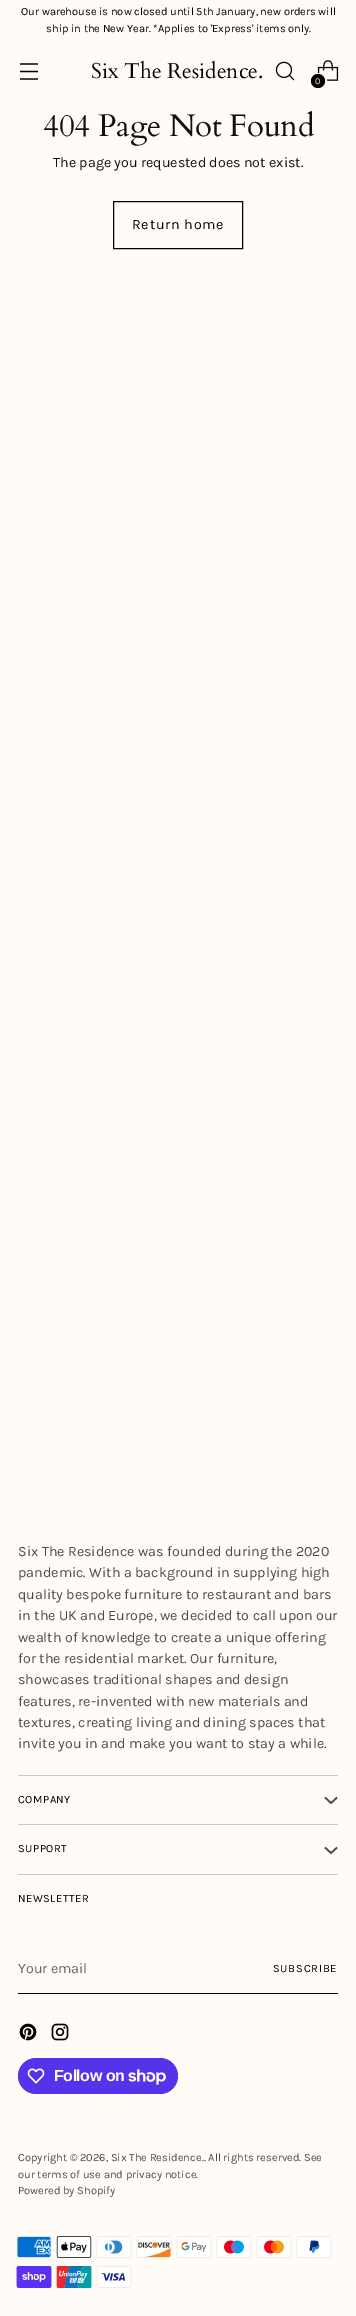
%!PS
<< /PageSize [356 2316] >> setpagedevice
/mt/moveto load def
/li/lineto load def
/fl/fill load def
/st/stroke load def
/lw/setlinewidth load def
/co { dup -16 bitshift 255 div exch dup -8 bitshift 255 and 255 div exch 255 and 255 div setrgbcolor } def
/fn { [ exch dup neg 0 0 3 -1 roll 0 0 ] selectfont } def
/tx { co fn moveto show } def
/bx { co rectfill } def
/ci { newpath 0 360 arc closepath } def
/rr { 5 dict begin { /r /h /w /y /x } { exch def } forall
  x r add y moveto x w add y 2 copy h add r arct x w add y h add x 1 index r arct
  x y h add x y r arct x y 2 copy exch w add exch r arct closepath end } def
/im { 5 dict begin { /h /w /y /x /name } { exch def } forall
  gsave x y translate w h scale
  w h 8 [w 0 0 h 0 0] name (r) file false 3 colorimage grestore end } def
0 2316 translate 1 -1 scale
4 setmiterlimit
0 0 356 2316 16#FFFBF6 bx
16#000000 co
1.3 lw
20 71.5 mt 38 71.5 li 20 64 mt 38 64 li 20 79 mt 38 79 li st
(media/1.raw) 275 61 20 20 im
(media/2.raw) 317 60 22 21 im
16#FFFBF6 co
2 lw
318.5 81.5 7.5 ci st
16#000000 co
318 81 7 ci fl
1 lw
113.5 201.5 129 47 rectstroke
18 1775 320 1 16#CCC9C5 bx
18 1824 320 1 16#CCC9C5 bx
16#4D4B4A co
1.6 lw
325 1797.5 mt 331 1803 li 337 1797.5 li 325 1847.5 mt 331 1853 li 337 1847.5 li st
18 1874 320 1 16#CCC9C5 bx
18 1993 320 1 16#000000 bx
(media/3.raw) 19 2023 18 18 im
(media/4.raw) 51 2023 18 18 im
16#5433EB co
18 2058 160 36 18 rr fl
(media/5.raw) 27 2068 18 16 im
(media/6.raw) 128 2069 38 16 im
(media/7.raw) 16 2236 36 22 im
(media/8.raw) 56 2236 36 22 im
(media/9.raw) 96 2236 36 22 im
(media/10.raw) 136 2236 36 22 im
(media/11.raw) 176 2236 36 22 im
(media/12.raw) 216 2236 36 22 im
(media/13.raw) 256 2236 36 22 im
(media/14.raw) 296 2236 36 22 im
(media/15.raw) 16 2266 36 22 im
(media/16.raw) 56 2266 36 22 im
(media/17.raw) 96 2266 36 22 im
(Our warehouse is now closed until 5th January, new orders will) 21 15 /Karla-Regular 11.1 16#000000 tx
(ship in the New Year. *Applies to 'Express' items only.) 46 32 /Karla-Regular 11.1 16#000000 tx
(Six The Residence.) 91 78 /Cardo-Regular 21.5 16#000000 tx
(0) 315 84 /Karla-Regular 9 16#FFFBF6 tx
/Cardo-Regular 31.25 fn
16#111111 co
43 136 mt -.3 0 (404 Page Not Found) ashow
(The page you requested does not exist.) 53 167 /Karla-Regular 14.25 16#111111 tx
16#000000 co
132 229 mt .75 0 (Return home) ashow
(Six The Residence was founded during the 2020) 18 1556 /Karla-Regular 14.25 16#4D4B4A tx
(pandemic. With a background in supplying high) 18 1577 /Karla-Regular 14.25 16#4D4B4A tx
(quality bespoke furniture to restaurant and bars) 18 1599 /Karla-Regular 14.25 16#4D4B4A tx
(in the UK and Europe, we decided to call upon our) 18 1620 /Karla-Regular 14.25 16#4D4B4A tx
(wealth of knowledge to create a unique offering) 18 1642 /Karla-Regular 14.25 16#4D4B4A tx
(for the residential market. Our furniture,) 18 1663 /Karla-Regular 14.25 16#4D4B4A tx
(showcases traditional shapes and design) 18 1684 /Karla-Regular 14.25 16#4D4B4A tx
(features, re-invented with new materials and) 18 1706 /Karla-Regular 14.25 16#4D4B4A tx
(textures, creating living and dining spaces that) 18 1727 /Karla-Regular 14.25 16#4D4B4A tx
(invite you in and make you want to stay a while.) 18 1748 /Karla-Regular 14.25 16#4D4B4A tx
/Karla-Regular 11.1 fn
16#000000 co
18 1803 mt .5 0 (COMPANY) ashow
18 1852 mt .5 0 (SUPPORT) ashow
18 1902 mt .5 0 (NEWSLETTER) ashow
(Your email) 18 1973 /Karla-Regular 14.25 16#666462 tx
/Karla-Regular 11.1 fn
16#000000 co
273 1972 mt .75 0 (SUBSCRIBE) ashow
/LiberationSans-Bold 16 fn
16#FFFFFF co
54 2081 mt -.5 0 (Follow on) ashow
(Copyright © 2026, Six The Residence.. All rights reserved. See) 18 2161 /Karla-Regular 11.1 16#4D4B4A tx
(our terms of use and privacy notice.) 18 2178 /Karla-Regular 11.1 16#4D4B4A tx
(Powered by Shopify) 18 2194 /Karla-Regular 11.1 16#4D4B4A tx
showpage
